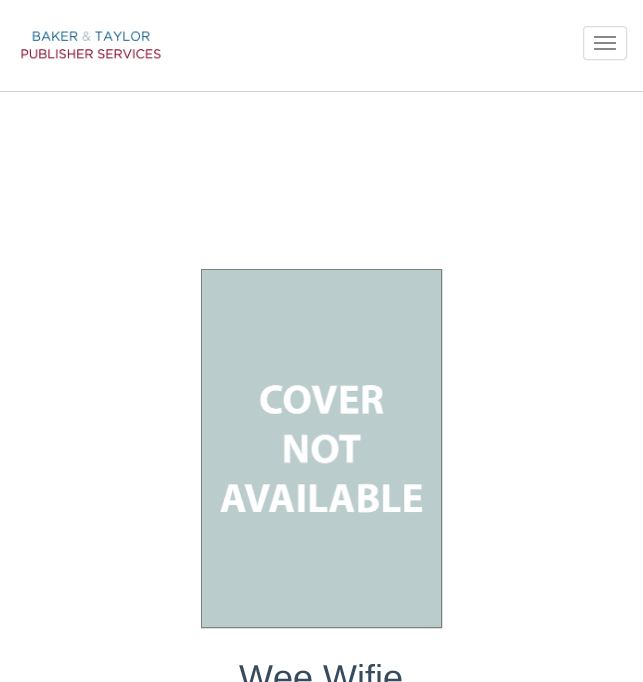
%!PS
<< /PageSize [643 682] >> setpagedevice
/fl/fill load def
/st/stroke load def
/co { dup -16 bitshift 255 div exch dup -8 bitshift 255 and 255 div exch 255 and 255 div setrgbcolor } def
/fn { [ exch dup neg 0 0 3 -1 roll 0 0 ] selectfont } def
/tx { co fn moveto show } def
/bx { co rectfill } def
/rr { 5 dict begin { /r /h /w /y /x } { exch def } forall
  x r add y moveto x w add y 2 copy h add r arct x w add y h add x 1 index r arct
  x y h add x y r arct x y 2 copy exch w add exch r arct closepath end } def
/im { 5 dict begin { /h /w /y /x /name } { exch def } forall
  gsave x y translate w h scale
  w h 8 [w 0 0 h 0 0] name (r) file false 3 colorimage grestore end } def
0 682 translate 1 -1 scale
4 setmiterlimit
0 0 643 682 16#FFFFFF bx
0 91 643 1 16#D3D3D3 bx
(media/1.raw) 21 30 140 30 im
16#DDDDDD co
583.5 26.5 43 33 3.5 rr st
16#888888 co
594 36 22 2 1 rr fl
594 42 22 2 1 rr fl
594 48 22 2 1 rr fl
16#808080 co
201.5 269.5 240 358 rectstroke
(media/2.raw) 202 270 239 357 im
(Wee Wifie) 239 690 /LiberationSans-Regular 36 16#374B5F tx
showpage
